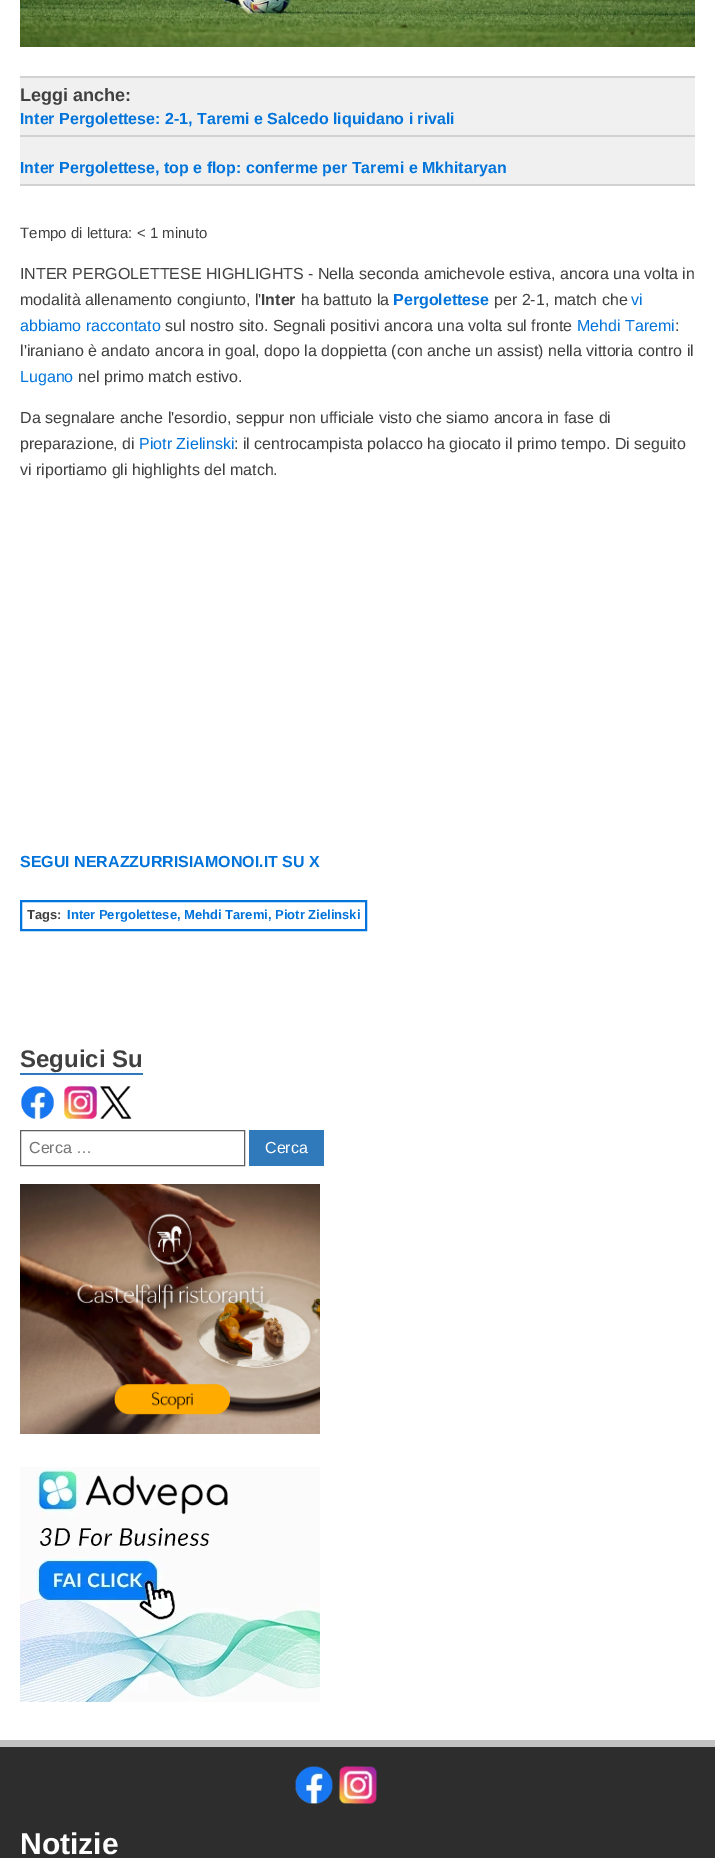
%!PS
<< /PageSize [715 1858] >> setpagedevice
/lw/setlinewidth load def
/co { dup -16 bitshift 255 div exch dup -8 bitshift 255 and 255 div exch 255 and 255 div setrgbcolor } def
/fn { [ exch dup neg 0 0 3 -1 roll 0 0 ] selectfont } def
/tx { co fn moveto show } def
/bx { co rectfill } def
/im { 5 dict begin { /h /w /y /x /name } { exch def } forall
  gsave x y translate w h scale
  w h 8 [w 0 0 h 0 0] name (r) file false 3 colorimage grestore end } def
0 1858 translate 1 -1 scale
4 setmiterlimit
0 0 715 1858 16#2D2D2D bx
0 0 715 1740 16#FFFFFF bx
(media/1.raw) 20 0 675 47 im
20 78 675 106 16#F0F0F0 bx
20 76 675 2 16#D2D2D2 bx
20 135 675 2 16#D2D2D2 bx
20 184 675 2 16#D2D2D2 bx
16#0274DB co
2 lw
21 901 345 29 rectstroke
20 1073 123 2 16#3079BA bx
(media/2.raw) 21 1086 33 33 im
(media/3.raw) 63 1085 35 35 im
(media/4.raw) 100 1086 32 33 im
16#635E5E co
1 lw
20.5 1130.5 224 35 rectstroke
249 1130 75 36 16#3079BA bx
(media/5.raw) 20 1184 300 250 im
(media/6.raw) 20 1467 300 235 im
0 1740 715 7 16#C2C2C2 bx
(media/7.raw) 295 1766 38 38 im
(media/8.raw) 338 1766 39 39 im
(Leggi anche:) 20 101 /LiberationSans-Bold 18 16#404040 tx
(Inter Pergolettese: 2-1, Taremi e Salcedo liquidano i rivali) 20 124 /LiberationSans-Bold 16 16#0074DB tx
(Inter Pergolettese, top e flop: conferme per Taremi e Mkhitaryan) 20 173 /LiberationSans-Bold 16 16#0074DB tx
(Tempo di lettura: < 1 minuto) 20 238 /LiberationSans-Regular 15 16#404040 tx
(INTER PERGOLETTESE HIGHLIGHTS - Nella seconda amichevole estiva, ancora una volta in) 20 279 /LiberationSans-Regular 16 16#404040 tx
(modalità allenamento congiunto, l') 20 305 /LiberationSans-Regular 16 16#404040 tx
(Inter) 261 305 /LiberationSans-Bold 16 16#404040 tx
(ha battuto la) 301 305 /LiberationSans-Regular 16 16#404040 tx
(Pergolettese) 393 305 /LiberationSans-Bold 16 16#0074DB tx
(per 2-1, match che) 494 305 /LiberationSans-Regular 16 16#404040 tx
(vi) 631 305 /LiberationSans-Regular 16 16#0074DB tx
(abbiamo raccontato) 20 331 /LiberationSans-Regular 16 16#0074DB tx
(sul nostro sito. Segnali positivi ancora una volta sul fronte) 165 331 /LiberationSans-Regular 16 16#404040 tx
(Mehdi Taremi) 577 331 /LiberationSans-Regular 16 16#0074DB tx
(:) 675 331 /LiberationSans-Regular 16 16#404040 tx
(l'iraniano è andato ancora in goal, dopo la doppietta \(con anche un assist\) nella vittoria contro il) 20 356 /LiberationSans-Regular 16 16#404040 tx
(Lugano) 20 382 /LiberationSans-Regular 16 16#0074DB tx
(nel primo match estivo.) 78 382 /LiberationSans-Regular 16 16#404040 tx
(Da segnalare anche l'esordio, seppur non ufficiale visto che siamo ancora in fase di) 20 423 /LiberationSans-Regular 16 16#404040 tx
(preparazione, di) 20 449 /LiberationSans-Regular 16 16#404040 tx
(Piotr Zielinski) 139 449 /LiberationSans-Regular 16 16#0074DB tx
(: il centrocampista polacco ha giocato il primo tempo. Di seguito) 234 449 /LiberationSans-Regular 16 16#404040 tx
(vi riportiamo gli highlights del match.) 20 475 /LiberationSans-Regular 16 16#404040 tx
(SEGUI NERAZZURRISIAMONOI.IT SU X) 20 867 /LiberationSans-Bold 16 16#0074DB tx
(Tags:) 27 919 /LiberationSans-Bold 13 16#404040 tx
(Inter Pergolettese) 67 919 /LiberationSans-Bold 13 16#0074DB tx
(,) 177 919 /LiberationSans-Bold 13 16#0074DB tx
(Mehdi Taremi) 184 919 /LiberationSans-Bold 13 16#0074DB tx
(,) 268 919 /LiberationSans-Bold 13 16#0074DB tx
(Piotr Zielinski) 275 919 /LiberationSans-Bold 13 16#0074DB tx
(Seguici Su) 20 1067 /LiberationSans-Bold 24 16#404040 tx
(Cerca …) 29 1153 /LiberationSans-Regular 16 16#757575 tx
(Cerca) 265 1153 /LiberationSans-Regular 16 16#FFFFFF tx
(Notizie) 20 1854 /LiberationSans-Bold 30 16#FFFFFF tx
showpage
